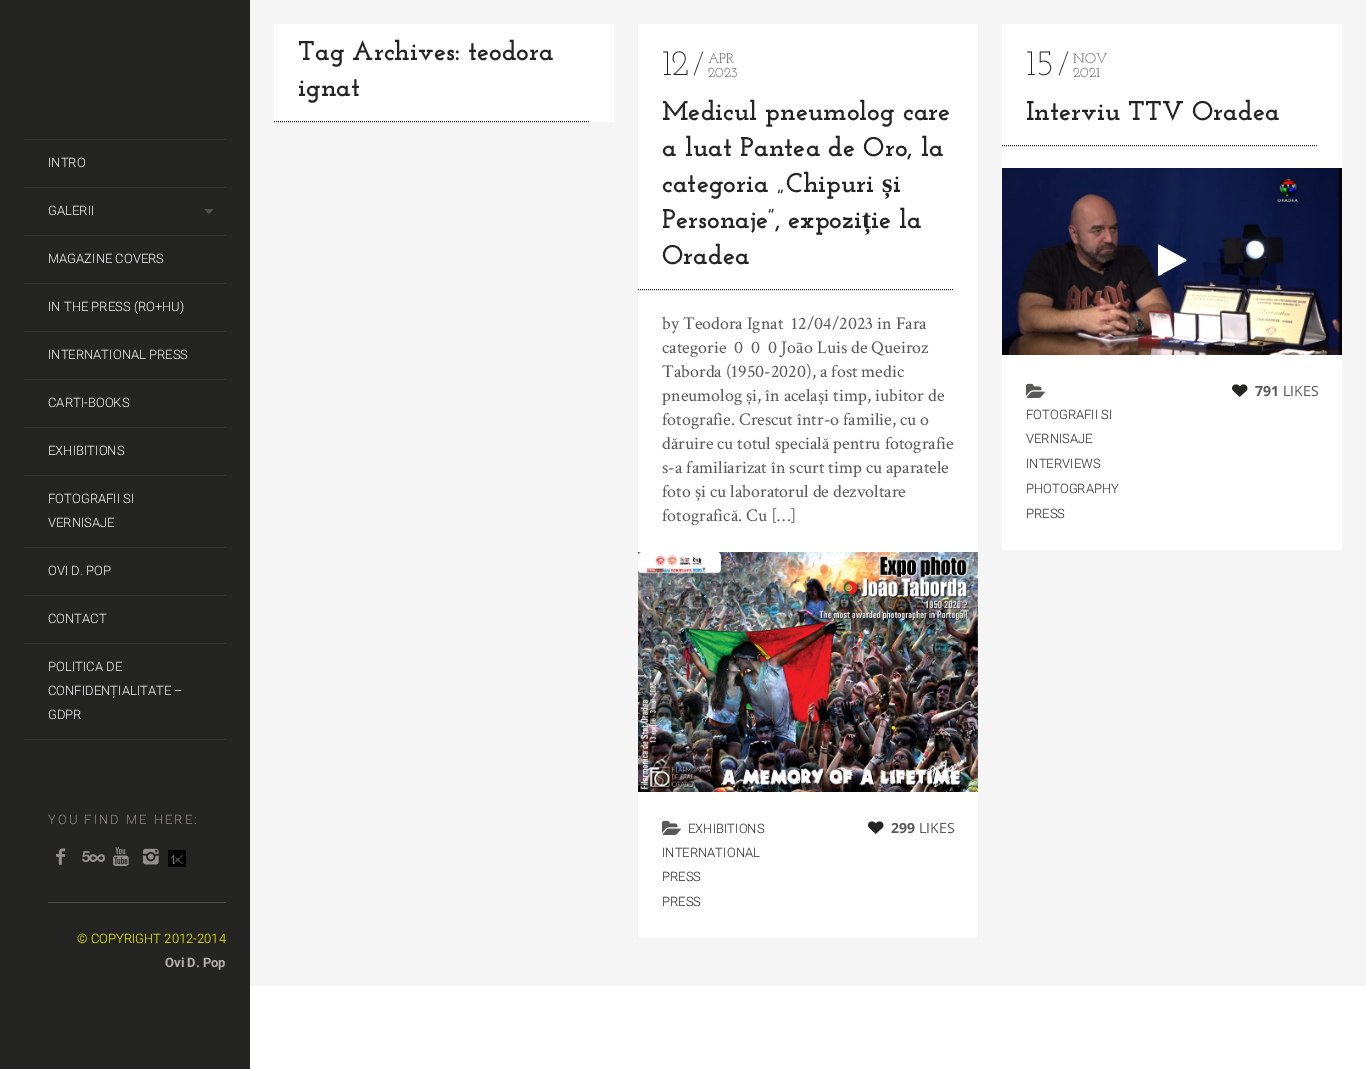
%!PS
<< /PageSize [1366 1069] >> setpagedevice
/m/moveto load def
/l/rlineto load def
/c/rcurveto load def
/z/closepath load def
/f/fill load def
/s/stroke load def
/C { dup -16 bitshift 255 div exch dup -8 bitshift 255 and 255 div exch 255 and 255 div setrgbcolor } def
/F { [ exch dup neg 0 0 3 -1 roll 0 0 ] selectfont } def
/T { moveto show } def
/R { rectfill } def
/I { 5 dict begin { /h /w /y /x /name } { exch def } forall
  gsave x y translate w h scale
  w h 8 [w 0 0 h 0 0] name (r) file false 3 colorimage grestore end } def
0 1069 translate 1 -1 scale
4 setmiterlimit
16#FFFFFF C
0 0 1366 1069 R
16#242423 C
0 0 250 1069 R
16#333638 C
24 139 202 1 R
24 187 202 1 R
/Roboto-Light 13 F
16#FFFFFF C
(INTRO) 48 167 T
16#333638 C
24 235 202 1 R
16#FFFFFF C
(GALERII) 48 215 T
16#4D4D4D C
204 209 m 10 0 l -5 5 l z f
16#333638 C
24 283 202 1 R
16#FFFFFF C
(MAGAZINE COVERS) 48 263 T
16#333638 C
24 331 202 1 R
16#FFFFFF C
(IN THE PRESS \(RO+HU\)) 48 311 T
16#333638 C
24 379 202 1 R
16#FFFFFF C
(INTERNATIONAL PRESS) 48 359 T
16#333638 C
24 427 202 1 R
16#FFFFFF C
(CARTI-BOOKS) 48 407 T
16#333638 C
24 475 202 1 R
16#FFFFFF C
(EXHIBITIONS) 48 455 T
16#333638 C
24 547 202 1 R
16#FFFFFF C
(FOTOGRAFII SI) 48 503 T
(VERNISAJE) 48 527 T
16#333638 C
24 595 202 1 R
16#FFFFFF C
(OVI D. POP) 48 575 T
16#333638 C
24 643 202 1 R
16#FFFFFF C
(CONTACT) 48 623 T
16#333638 C
24 739 202 1 R
16#FFFFFF C
(POLITICA DE) 48 671 T
(CONFIDENȚIALITATE –) 48 695 T
(GDPR) 48 719 T
16#4D4D4D C
48 902 178 1 R
16#91908E C
48 824 m 2 0 (YOU FIND ME HERE:) ashow
(1.rgb) 56 848 10 17 I
(2.rgb) 82 851 23 12 I
(3.rgb) 113 847 16 20 I
(4.rgb) 143 848 16 17 I
(5.rgb) 168 850 18 17 I
16#FFFF00 C
(© COPYRIGHT 2012-2014) 77 943 T
/Roboto-Bold 13 F
16#B2B1AF C
(Ovi D. Pop) 165 967 T
16#F5F5F5 C
250 0 1116 986 R
16#FFFFFF C
274 24 340 98 R
/JosefinSlab-Bold 27 F
16#242423 C
(Tag Archives: teodora) 298 60 T
(ignat) 298 96 T
[1 1] 0 setdash
274 121.5 m 316 0 l s
16#FFFFFF C
638 24 340 914 R
/JosefinSlab-Light 36 F
16#242423 C
(12) 662 75 T
/JosefinSlab-Light 32 F
(/) 693 75 T
/JosefinSlab-Regular 14 F
16#595957 C
(APR) 708 63 T
(2023) 708 77 T
/JosefinSlab-Bold 27 F
16#242423 C
(Medicul pneumolog care) 662 120 T
(a luat Pantea de Oro, la) 662 156 T
(categoria „Chipuri) 662 192 T
/LiberationSerif-Bold 27 F
(ș) 882 192 T
/JosefinSlab-Bold 27 F
(i) 893 192 T
(Personaje”, expozi) 662 228 T
/LiberationSerif-Bold 27 F
(ț) 862 228 T
/JosefinSlab-Bold 27 F
(ie la) 871 228 T
(Oradea) 662 264 T
638 289.5 m 316 0 l s
/CrimsonText-Regular 18 F
16#595957 C
(by Teodora Ignat  12/04/2023 in Fara) 662 329 T
(categorie  0  0  0 João Luis de Queiroz) 662 353 T
(Taborda \(1950-2020\), a fost medic) 662 377 T
(pneumolog și, în același timp, iubitor de) 662 401 T
(fotografie. Crescut într-o familie, cu o) 662 425 T
(dăruire cu totul specială pentru fotografie) 662 449 T
(s-a familiarizat în scurt timp cu aparatele) 662 473 T
(foto și cu laboratorul de dezvoltare) 662 497 T
(fotografică. Cu […]) 662 521 T
(6.rgb) 638 552 340 240 I
(7.rgb) 662 820 19 15 I
/Roboto-Light 13 F
16#242423 C
(EXHIBITIONS) 688 833 T
(INTERNATIONAL) 662 857 T
(PRESS) 662 881 T
(PRESS) 662 906 T
(8.rgb) 868 821 16 13 I
/OpenSans-Bold 14 F
16#595957 C
(299) 891 833 T
/OpenSans-Regular 14 F
(LIKES) 919 833 T
16#FFFFFF C
1002 24 340 526 R
/JosefinSlab-Light 36 F
16#242423 C
(15) 1026 75 T
/JosefinSlab-Light 32 F
(/) 1058 75 T
/JosefinSlab-Regular 14 F
16#595957 C
(NOV) 1073 63 T
(2021) 1073 77 T
/JosefinSlab-Bold 27 F
16#242423 C
(Interviu TTV Oradea) 1026 120 T
1002 145.5 m 316 0 l s
(9.rgb) 1002 168 340 187 I
16#FFFFFF C
1186 261 m -22.5 12 l -.5 .5 -4.5 3.5 -5.5 2.5 c 0 -30.5 l .5 -.5 l 27.5 15 l .5 .5 l z f
(8.rgb) 1232 384 16 13 I
/OpenSans-Bold 14 F
16#595957 C
(791) 1255 396 T
/OpenSans-Regular 14 F
(LIKES) 1283 396 T
(7.rgb) 1026 383 19 15 I
/Roboto-Light 13 F
16#242423 C
(FOTOGRAFII SI) 1026 419 T
(VERNISAJE) 1026 443 T
(INTERVIEWS) 1026 468 T
(PHOTOGRAPHY) 1026 493 T
(PRESS) 1026 518 T
showpage
